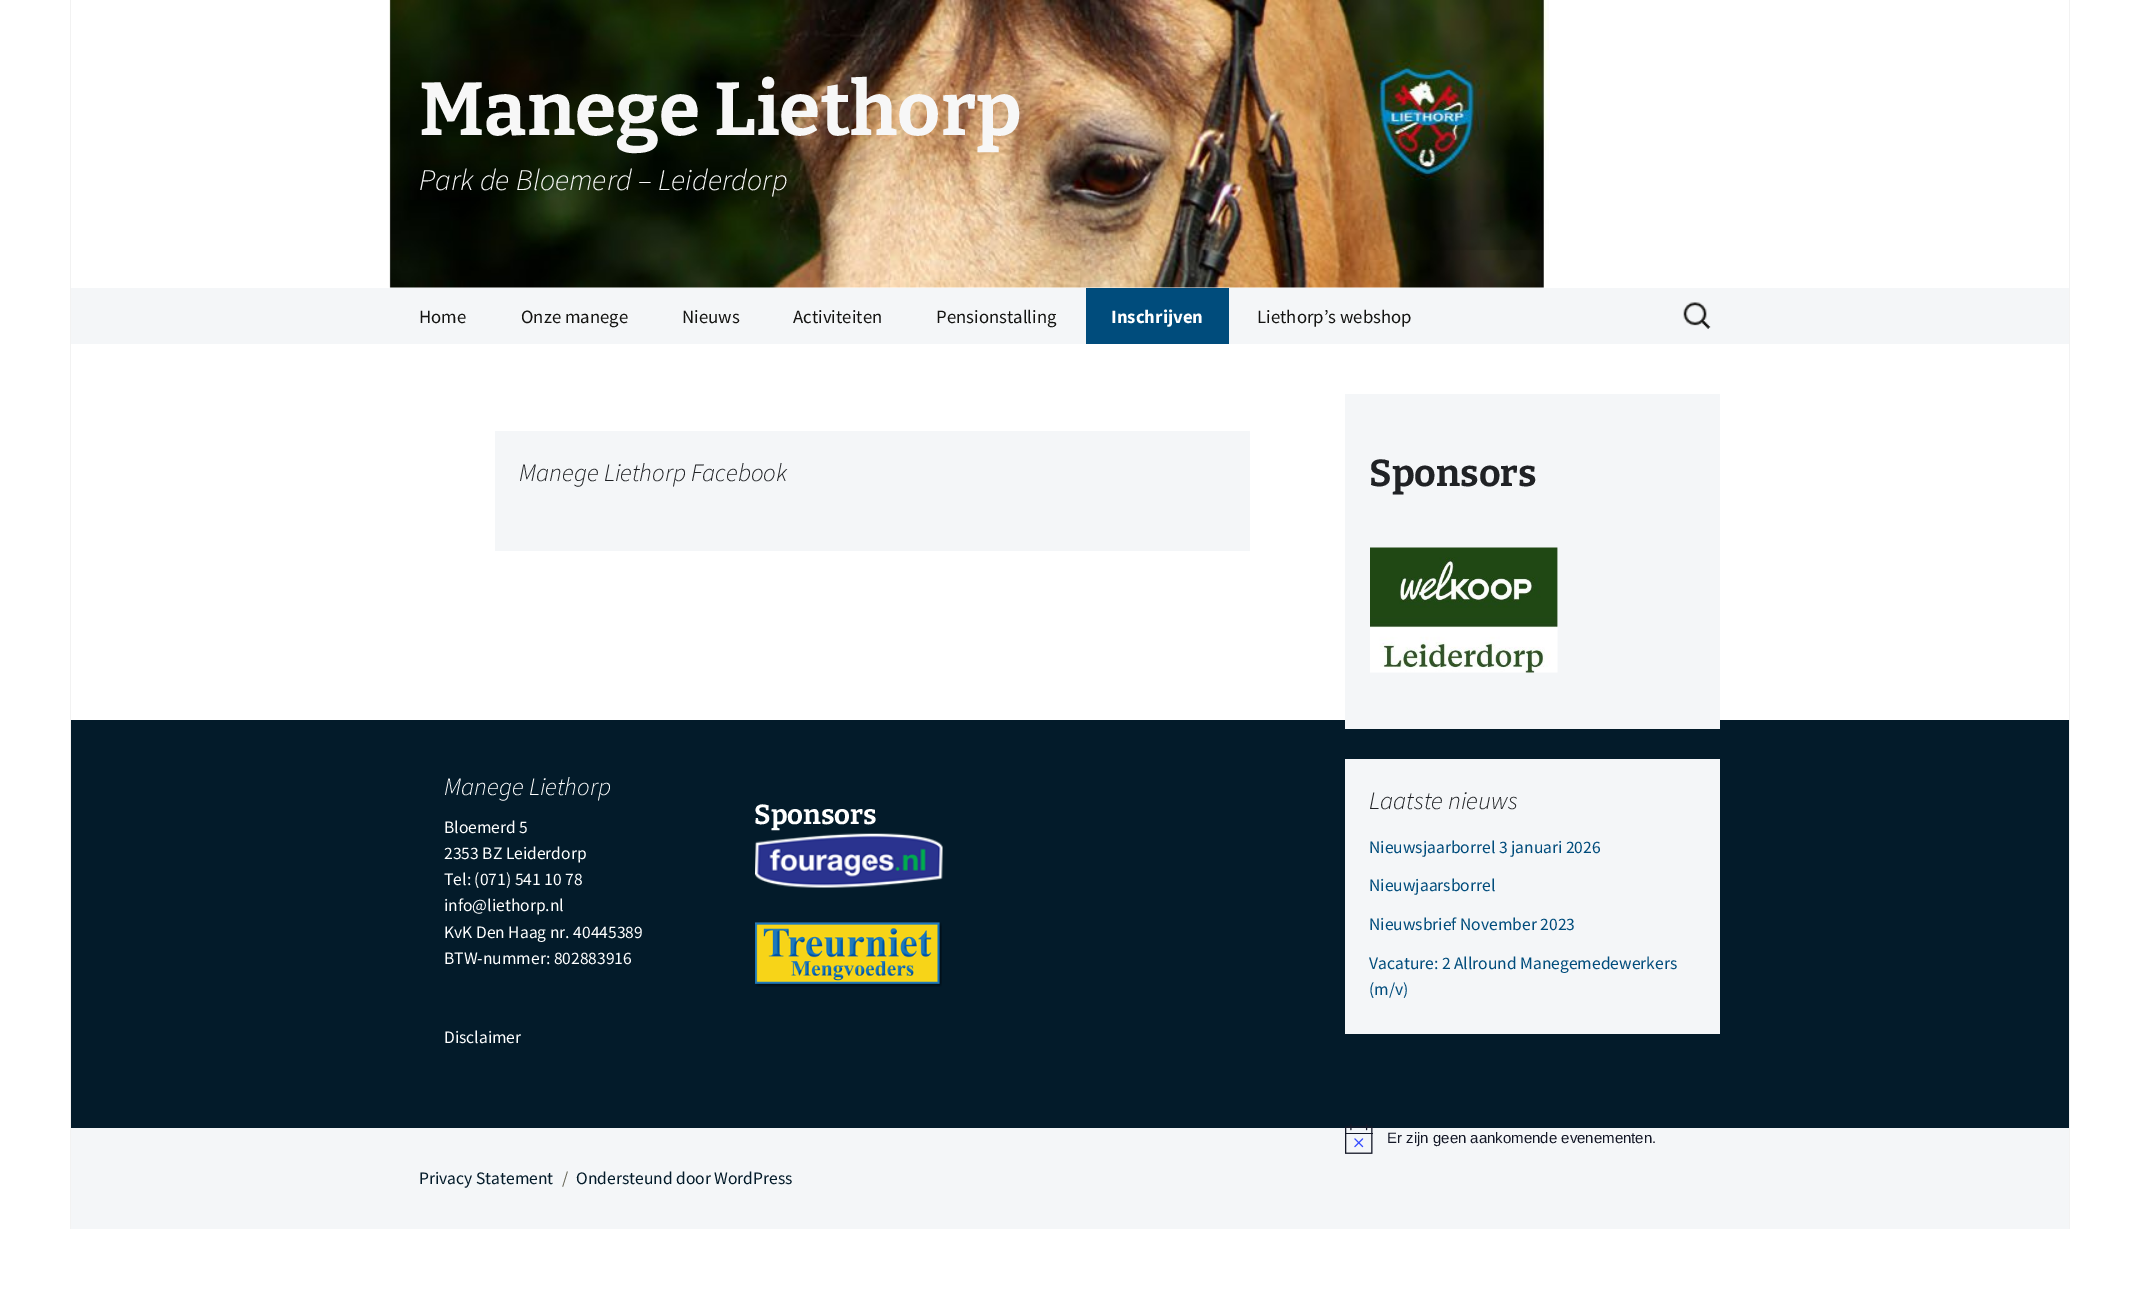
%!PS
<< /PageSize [2138 1308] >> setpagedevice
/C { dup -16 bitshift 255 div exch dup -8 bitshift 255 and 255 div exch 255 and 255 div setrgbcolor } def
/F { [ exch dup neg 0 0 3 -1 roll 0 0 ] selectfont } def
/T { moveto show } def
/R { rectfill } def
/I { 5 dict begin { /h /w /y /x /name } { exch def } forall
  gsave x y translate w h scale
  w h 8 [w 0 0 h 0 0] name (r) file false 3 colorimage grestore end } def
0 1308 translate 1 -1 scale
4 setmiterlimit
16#FFFFFF C
0 0 2138 1308 R
16#F2F2F2 C
2069 0 1 1229 R
70 0 1 1229 R
(1.rgb) 389 0 1161 288 I
/Bitter-Thin 75 F
16#F7F7F7 C
(Manege Liethorp) 419 135 T
/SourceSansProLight-LightItalic 30 F
(Park de Bloemerd – Leiderdorp) 419 190 T
16#F4F6F8 C
71 288 1998 56 R
/SourceSansPro-Regular 18.75 F
16#141412 C
(Home) 419 323 T
(Onze manege) 521 323 T
(Nieuws) 682 323 T
(Activiteiten) 793 323 T
(Pensionstalling) 936 323 T
16#004C7C C
1086 288 143 56 R
/SourceSansPro-Bold 18.75 F
16#FFFFFF C
(Inschrijven) 1111 323 T
/SourceSansPro-Regular 18.75 F
16#141412 C
(Liethorp’s webshop) 1257 323 T
(2.rgb) 1683 302 28 27 I
16#F4F6F8 C
495 431 755 120 R
/SourceSansProLight-LightItalic 25 F
16#202225 C
(Manege Liethorp Facebook) 519 481 T
16#031B2A C
71 720 1998 408 R
16#F4F6F8 C
1345 394 375 335 R
/Bitter-Thin 37.5 F
16#202225 C
(Sponsors) 1369 486 T
(3.rgb) 1370 547 188 126 I
16#F4F6F8 C
1345 759 375 275 R
/SourceSansProLight-LightItalic 25 F
16#202225 C
(Laatste nieuws) 1369 809 T
/SourceSansPro-Regular 17.5 F
16#004C7C C
(Nieuwsjaarborrel 3 januari 2026) 1369 853 T
(Nieuwjaarsborrel) 1369 891 T
(Nieuwsbrief November 2023) 1369 930 T
(Vacature: 2 Allround Manegemedewerkers) 1369 969 T
(\(m/v\)) 1369 995 T
16#F4F6F8 C
71 1128 1998 101 R
(4.rgb) 1345 1124 28 30 I
/LiberationSans-Regular 15 F
16#141827 C
(Er zijn geen aankomende evenementen.) 1387 1143 T
/SourceSansProLight-LightItalic 25 F
16#FFFFFF C
(Manege Liethorp) 444 795 T
/SourceSansPro-Regular 17.5 F
(Bloemerd 5) 444 833 T
(2353 BZ Leiderdorp) 444 859 T
(Tel: \(071\) 541 10 78) 444 885 T
(info@liethorp.nl) 444 911 T
(KvK Den Haag nr. 40445389) 444 938 T
(BTW-nummer: 802883916) 444 964 T
(Disclaimer) 444 1043 T
/Bitter-Thin 27.5 F
(Sponsors) 754 824 T
(5.rgb) 755 833 188 55 I
(6.rgb) 755 922 187 65 I
/SourceSansPro-Regular 17.5 F
16#031B2A C
(Privacy Statement) 419 1184 T
16#686758 C
(/) 562 1184 T
16#031B2A C
(Ondersteund door WordPress) 576 1184 T
showpage
